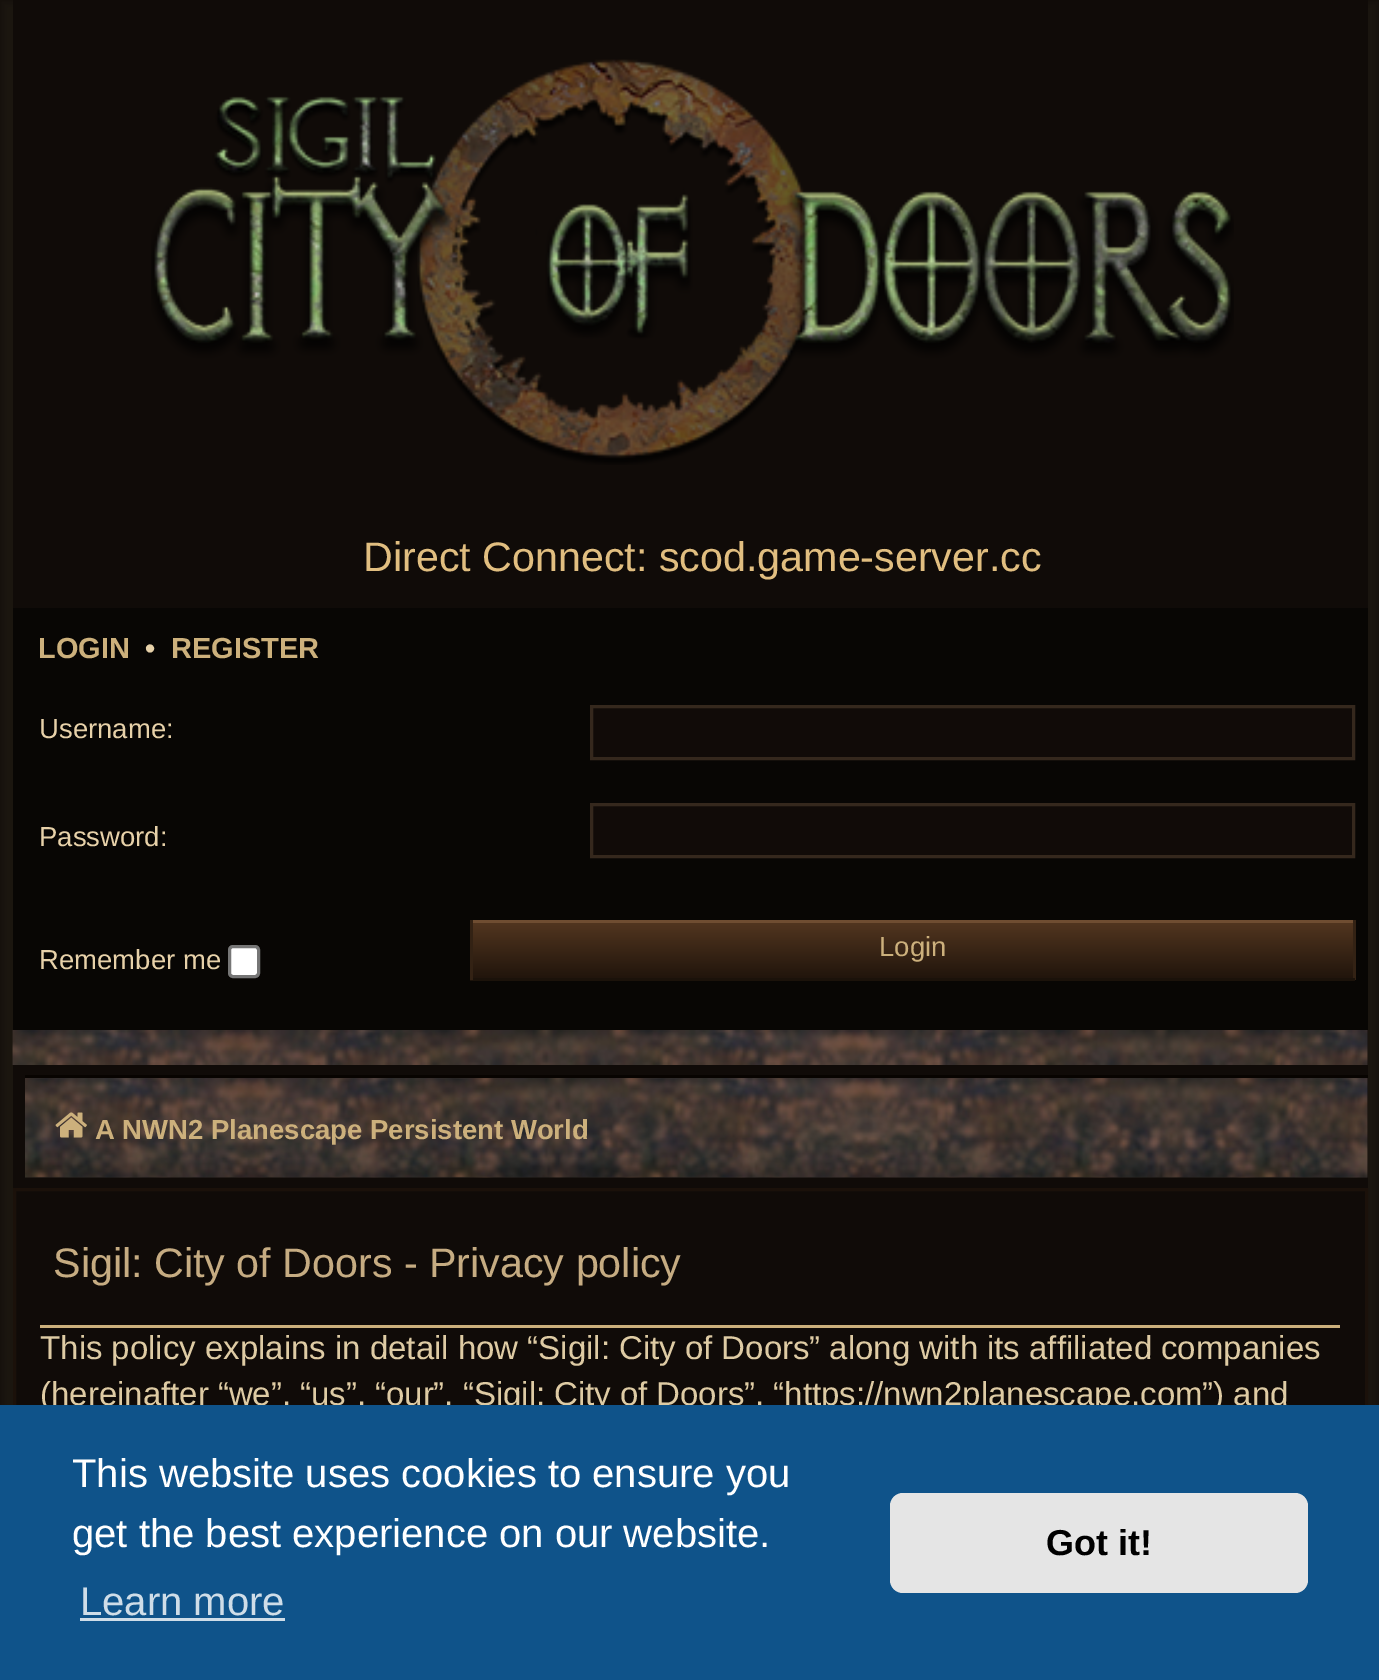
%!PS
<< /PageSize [1379 1680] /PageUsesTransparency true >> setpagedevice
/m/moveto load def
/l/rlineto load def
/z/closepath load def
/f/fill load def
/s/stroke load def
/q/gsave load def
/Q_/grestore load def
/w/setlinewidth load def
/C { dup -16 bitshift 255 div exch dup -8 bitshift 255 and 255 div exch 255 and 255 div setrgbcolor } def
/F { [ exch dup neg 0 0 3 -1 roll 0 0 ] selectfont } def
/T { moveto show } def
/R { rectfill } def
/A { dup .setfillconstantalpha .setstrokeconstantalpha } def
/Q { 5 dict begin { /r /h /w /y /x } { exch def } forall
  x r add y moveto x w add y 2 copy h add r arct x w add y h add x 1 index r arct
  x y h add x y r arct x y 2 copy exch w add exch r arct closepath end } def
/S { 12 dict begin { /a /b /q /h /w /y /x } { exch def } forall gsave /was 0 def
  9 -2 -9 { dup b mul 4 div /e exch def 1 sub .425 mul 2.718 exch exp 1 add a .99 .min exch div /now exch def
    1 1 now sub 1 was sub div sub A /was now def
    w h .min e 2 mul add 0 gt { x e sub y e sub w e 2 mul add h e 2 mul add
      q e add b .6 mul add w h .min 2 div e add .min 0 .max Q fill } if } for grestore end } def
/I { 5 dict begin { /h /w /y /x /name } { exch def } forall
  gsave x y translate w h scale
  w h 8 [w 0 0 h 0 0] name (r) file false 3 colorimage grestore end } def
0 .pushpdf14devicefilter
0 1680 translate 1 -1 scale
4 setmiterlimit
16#100B08 C
0 0 1379 1680 R
q
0 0 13 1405 rectclip
16#1C1710 C
0 0 1355 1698 0 6 1 S
Q_
q
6 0 m 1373 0 l 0 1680 l -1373 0 l z 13 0 m 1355 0 l 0 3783 l -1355 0 l z eoclip newpath
16#1C1710 C
25 0 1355 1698 0 6 .9 S
Q_
1367 0 1 608 R
(1.rgb) 151 59 1083 406 I
/LiberationSans-Regular 41.25 F
16#E1BE80 C
(Direct Connect: scod.game-server.cc) 363 571 T
16#080604 C
13 608 1355 422 R
/LiberationSans-Bold 29 F
16#CCB07C C
(LOGIN) 38 658 T
16#E7D1A9 C
(•) 145 658 T
16#CCB07C C
(REGISTER) 171 658 T
/LiberationSans-Regular 27.5 F
16#E7D1A9 C
(Username:) 39 738 T
16#110B08 C
591.5 706.5 m 762 0 l 0 52 l -762 0 l z q f Q_
16#35281D C
3 w
s
16#E7D1A9 C
(Password:) 39 846 T
16#110B08 C
591.5 804.5 m 762 0 l 0 52 l -762 0 l z q f Q_
16#35281D C
s
16#E7D1A9 C
(Remember me) 39 969 T
16#FFFFFF C
229.5 946.5 29 30 3.5 Q q f Q_
16#767676 C
s
q 473 923 m 880 0 l 0 55 l -880 0 l z clip newpath
<< /ShadingType 2 /ColorSpace /DeviceRGB /Coords [913 923 913 978] /Extend [true true] /Function << /FunctionType 2 /Domain [0 1] /C0 [.318 .208 .122] /C1 [.129 .082 .047] /N 1 >> >> shfill Q_
16#6F4D31 C
470 920 885 3 R
16#332214 C
1353 920 3 60 R
16#1B120A C
470 978 885 3 R
16#332214 C
470 920 3 60 R
16#CCB07C C
(Login) 879 956 T
(2.rgb) 12 1030 1356 35 I
16#100B08 C
1367 1065 1 113 R
(3.rgb) 25 1078 1343 100 I
16#080401 C
25 1075 1343 3 R
(4.rgb) 55 1112 32 26 I
/LiberationSans-Bold 27.5 F
16#CCB07C C
(A NWN2 Planescape Persistent World) 95 1139 T
16#1B110A C
14.5 1189.5 1352 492 rectstroke
16#CCB07C C
40 1325 1300 3 R
/LiberationSans-Regular 41.25 F
16#C6AC82 C
(Sigil: City of Doors - Privacy policy) 53 1277 T
/LiberationSans-Regular 33 F
16#DECBA4 C
40 1359 m -.1 0 32 (This policy explains in detail how “Sigil: City of Doors” along with its affiliated companies) widthshow
40 1405 m -.25 0 32 (\(hereinafter “we”, “us”, “our”, “Sigil: City of Doors”, “https://nwn2planescape.com”\) and) widthshow
16#0F538A C
0 1405 1379 275 R
/LiberationSans-Regular 40 F
16#FFFFFF C
(This website uses cookies to ensure you) 72 1487 T
(get the best experience on our website.) 72 1547 T
16#CFDDE8 C
(Learn more) 80 1615 T
80 1618 205 3 R
16#E5E5E5 C
890 1493 418 100 13 Q f
/LiberationSans-Bold 36 F
16#000000 C
(Got it!) 1046 1555 T
.poppdf14devicefilter showpage
